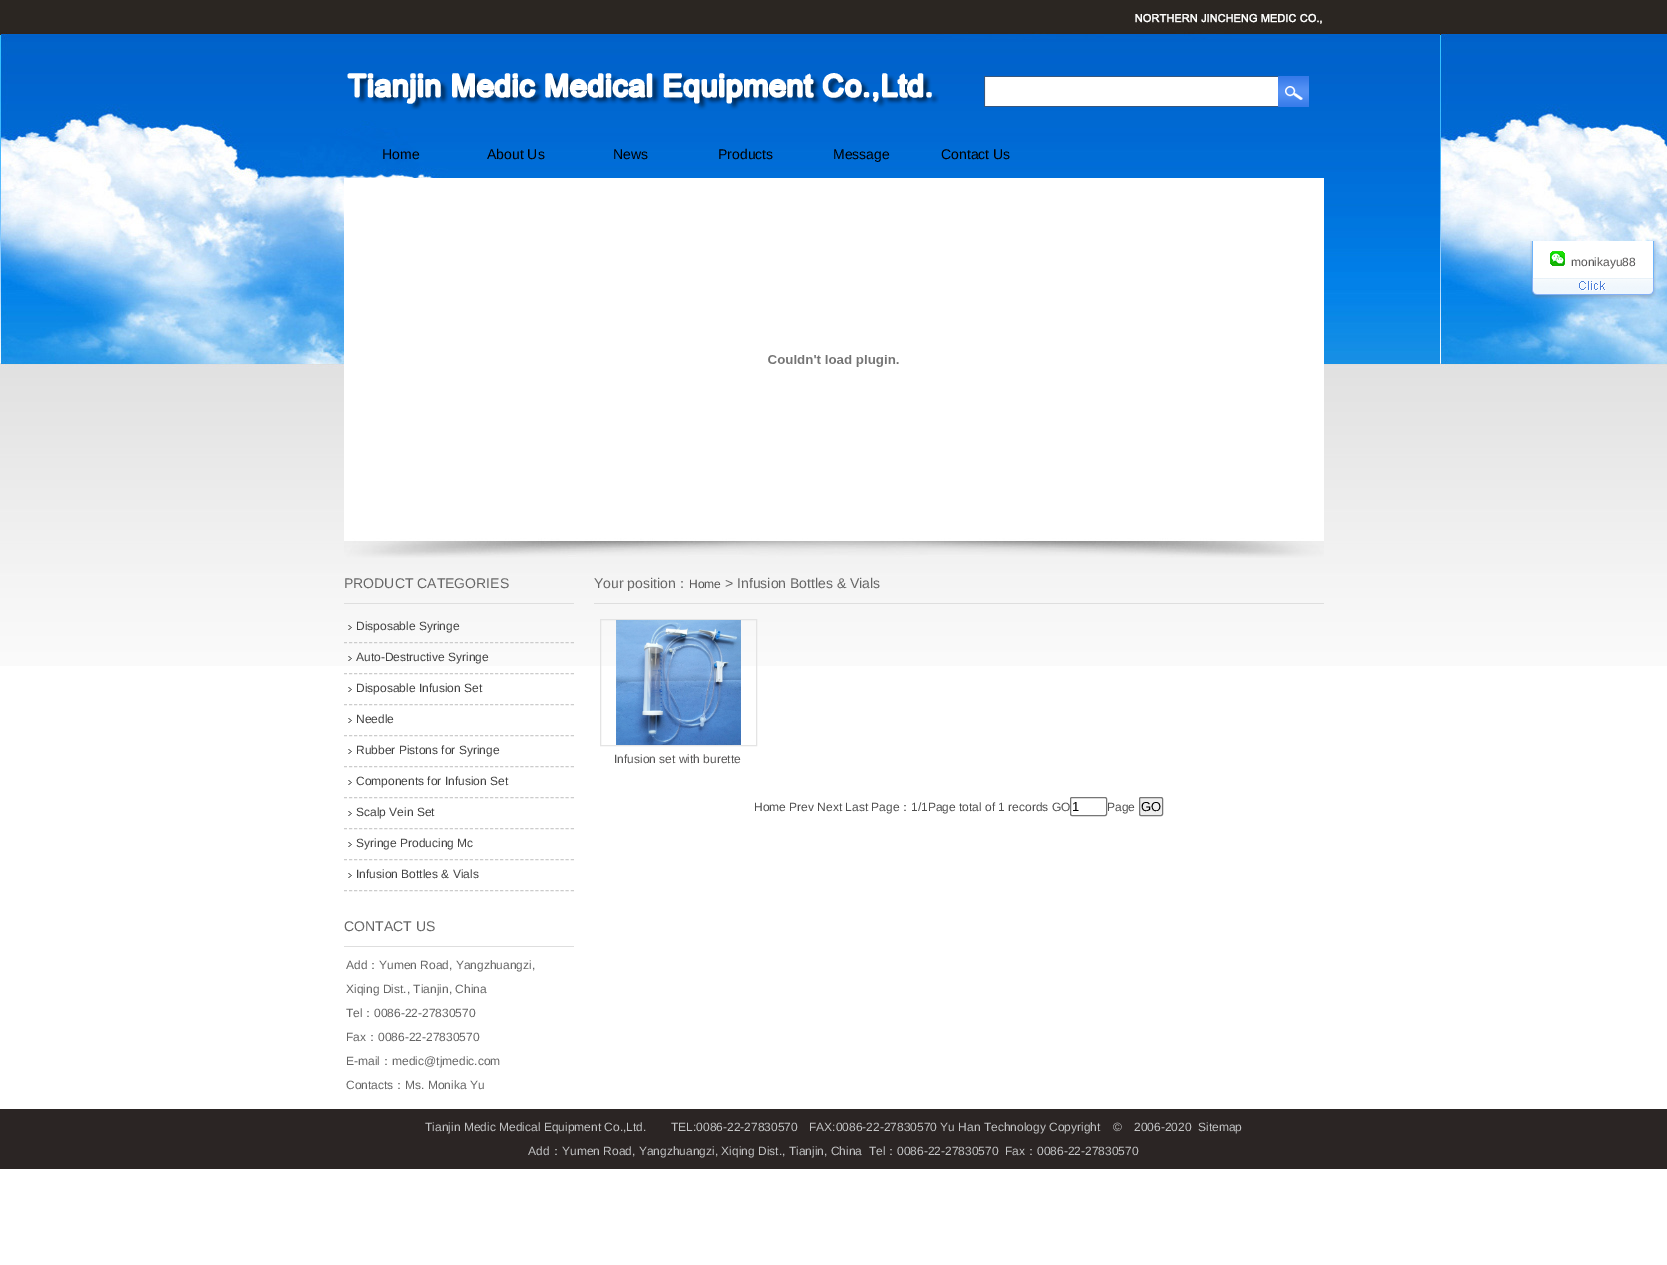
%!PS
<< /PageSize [1667 1265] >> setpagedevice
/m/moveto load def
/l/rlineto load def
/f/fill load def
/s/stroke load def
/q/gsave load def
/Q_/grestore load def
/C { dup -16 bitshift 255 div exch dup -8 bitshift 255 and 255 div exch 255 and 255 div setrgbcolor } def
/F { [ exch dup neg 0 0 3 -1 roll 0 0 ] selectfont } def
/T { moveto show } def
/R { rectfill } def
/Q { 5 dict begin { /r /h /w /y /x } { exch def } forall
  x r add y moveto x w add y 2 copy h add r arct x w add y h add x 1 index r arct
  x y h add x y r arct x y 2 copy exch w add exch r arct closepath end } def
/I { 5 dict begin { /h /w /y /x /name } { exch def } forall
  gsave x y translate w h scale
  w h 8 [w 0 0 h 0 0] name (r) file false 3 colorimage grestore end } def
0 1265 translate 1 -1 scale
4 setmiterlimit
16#FFFFFF C
0 0 1667 1265 R
(1.rgb) 0 0 1667 666 I
(2.rgb) 1135 13 187 16 I
(3.rgb) 347 73 592 37 I
(4.rgb) 984 76 294 31 I
(5.rgb) 1278 76 31 31 I
/LiberationSans-Regular 14 F
16#000000 C
(Home) 382 159 T
(About Us) 487 159 T
(News) 613 159 T
(Products) 718 159 T
(Message) 833 159 T
(Contact Us) 941 159 T
(6.rgb) 344 178 980 380 I
(7.rgb) 768 355 131 12 I
16#DEDEDE C
344 603 230 1 R
16#666666 C
(PRODUCT CATEGORIES) 344 588 T
(8.rgb) 348 625 4 5 I
16#CCCCCC C
[3 2.04] 0 setdash
344 642.5 m 230 0 l s
/LiberationSans-Regular 12 F
16#434343 C
(Disposable Syringe) 356 630 T
(9.rgb) 348 656 4 5 I
16#CCCCCC C
344 673.5 m 230 0 l s
16#434343 C
(Auto-Destructive Syringe) 356 661 T
(10.rgb) 348 687 4 5 I
16#CCCCCC C
344 704.5 m 230 0 l s
16#434343 C
(Disposable Infusion Set) 356 692 T
(10.rgb) 348 718 4 5 I
16#CCCCCC C
344 735.5 m 230 0 l s
16#434343 C
(Needle) 356 723 T
(10.rgb) 348 749 4 5 I
16#CCCCCC C
344 766.5 m 230 0 l s
16#434343 C
(Rubber Pistons for Syringe) 356 754 T
(10.rgb) 348 780 4 5 I
16#CCCCCC C
344 797.5 m 230 0 l s
16#434343 C
(Components for Infusion Set) 356 785 T
(10.rgb) 348 811 4 5 I
16#CCCCCC C
344 828.5 m 230 0 l s
16#434343 C
(Scalp Vein Set) 356 816 T
(10.rgb) 348 842 4 5 I
16#CCCCCC C
344 859.5 m 230 0 l s
16#434343 C
(Syringe Producing Mc) 356 847 T
(10.rgb) 348 873 4 5 I
16#CCCCCC C
344 890.5 m 230 0 l s
16#434343 C
(Infusion Bottles & Vials) 356 878 T
16#DEDEDE C
344 946 230 1 R
/LiberationSans-Regular 14 F
16#666666 C
(CONTACT US) 344 931 T
/LiberationSans-Regular 12 F
(Add) 346 969 T
/WenQuanYiZenHei-Medium 12 F
(：) 367 969 T
/LiberationSans-Regular 12 F
(Yumen Road, Yangzhuangzi,) 379 969 T
(Xiqing Dist., Tianjin, China) 346 993 T
(Tel) 346 1017 T
/WenQuanYiZenHei-Medium 12 F
(：) 362 1017 T
/LiberationSans-Regular 12 F
(0086-22-27830570) 374 1017 T
(Fax) 346 1041 T
/WenQuanYiZenHei-Medium 12 F
(：) 366 1041 T
/LiberationSans-Regular 12 F
(0086-22-27830570) 378 1041 T
(E-mail) 346 1065 T
/WenQuanYiZenHei-Medium 12 F
(：) 380 1065 T
/LiberationSans-Regular 12 F
(medic@tjmedic.com) 392 1065 T
(Contacts) 346 1089 T
/WenQuanYiZenHei-Medium 12 F
(：) 393 1089 T
/LiberationSans-Regular 12 F
(Ms. Monika Yu) 405 1089 T
16#DEDEDE C
594 603 730 1 R
/LiberationSans-Regular 14 F
16#666666 C
(Your position) 594 588 T
/WenQuanYiZenHei-Medium 14 F
(：) 675 588 T
/LiberationSans-Regular 12 F
16#575656 C
(Home) 689 588 T
/LiberationSans-Regular 14 F
16#666666 C
(> Infusion Bottles & Vials) 725 588 T
16#E4E4E4 C
[] 0 setdash
600.5 619.5 156 126 rectstroke
(11.rgb) 616 620 125 125 I
/LiberationSans-Regular 12 F
16#575656 C
(Infusion set with burette) 614 763 T
16#505050 C
(Home Prev Next Last Page) 754 811 T
/WenQuanYiZenHei-Medium 12 F
(：) 899 811 T
/LiberationSans-Regular 12 F
(1/1Page total of 1 records GO) 911 811 T
16#767676 C
1070.5 797.5 36 18 1.5 Q s
/LiberationSans-Regular 13 F
16#000000 C
(1) 1072 811 T
/LiberationSans-Regular 12 F
16#505050 C
(Page) 1107 811 T
16#EFEFEF C
1139.5 797.5 23 18 1.5 Q q f Q_
16#767676 C
s
/LiberationSans-Regular 13 F
16#000000 C
(GO) 1141 811 T
(12.rgb) 1530 241 126 37 I
(13.rgb) 1550 251 15 15 I
/LiberationSans-Regular 12 F
16#575656 C
(monikayu88) 1571 266 T
(14.rgb) 1530 278 126 21 I
16#2B2524 C
0 1109 1667 60 R
16#C2C3C4 C
(Tianjin Medic Medical Equipment Co.,Ltd.) 425 1131 T
(TEL:0086-22-27830570) 671 1131 T
(FAX:0086-22-27830570 Yu Han Technology Copyright) 809 1131 T
(©) 1113 1131 T
(2006-2020) 1134 1131 T
(Sitemap) 1198 1131 T
(Add) 528 1155 T
/WenQuanYiZenHei-Medium 12 F
(：) 550 1155 T
/LiberationSans-Regular 12 F
(Yumen Road, Yangzhuangzi, Xiqing Dist., Tianjin, China  Tel) 562 1155 T
/WenQuanYiZenHei-Medium 12 F
(：) 885 1155 T
/LiberationSans-Regular 12 F
(0086-22-27830570  Fax) 897 1155 T
/WenQuanYiZenHei-Medium 12 F
(：) 1025 1155 T
/LiberationSans-Regular 12 F
(0086-22-27830570) 1037 1155 T
showpage
